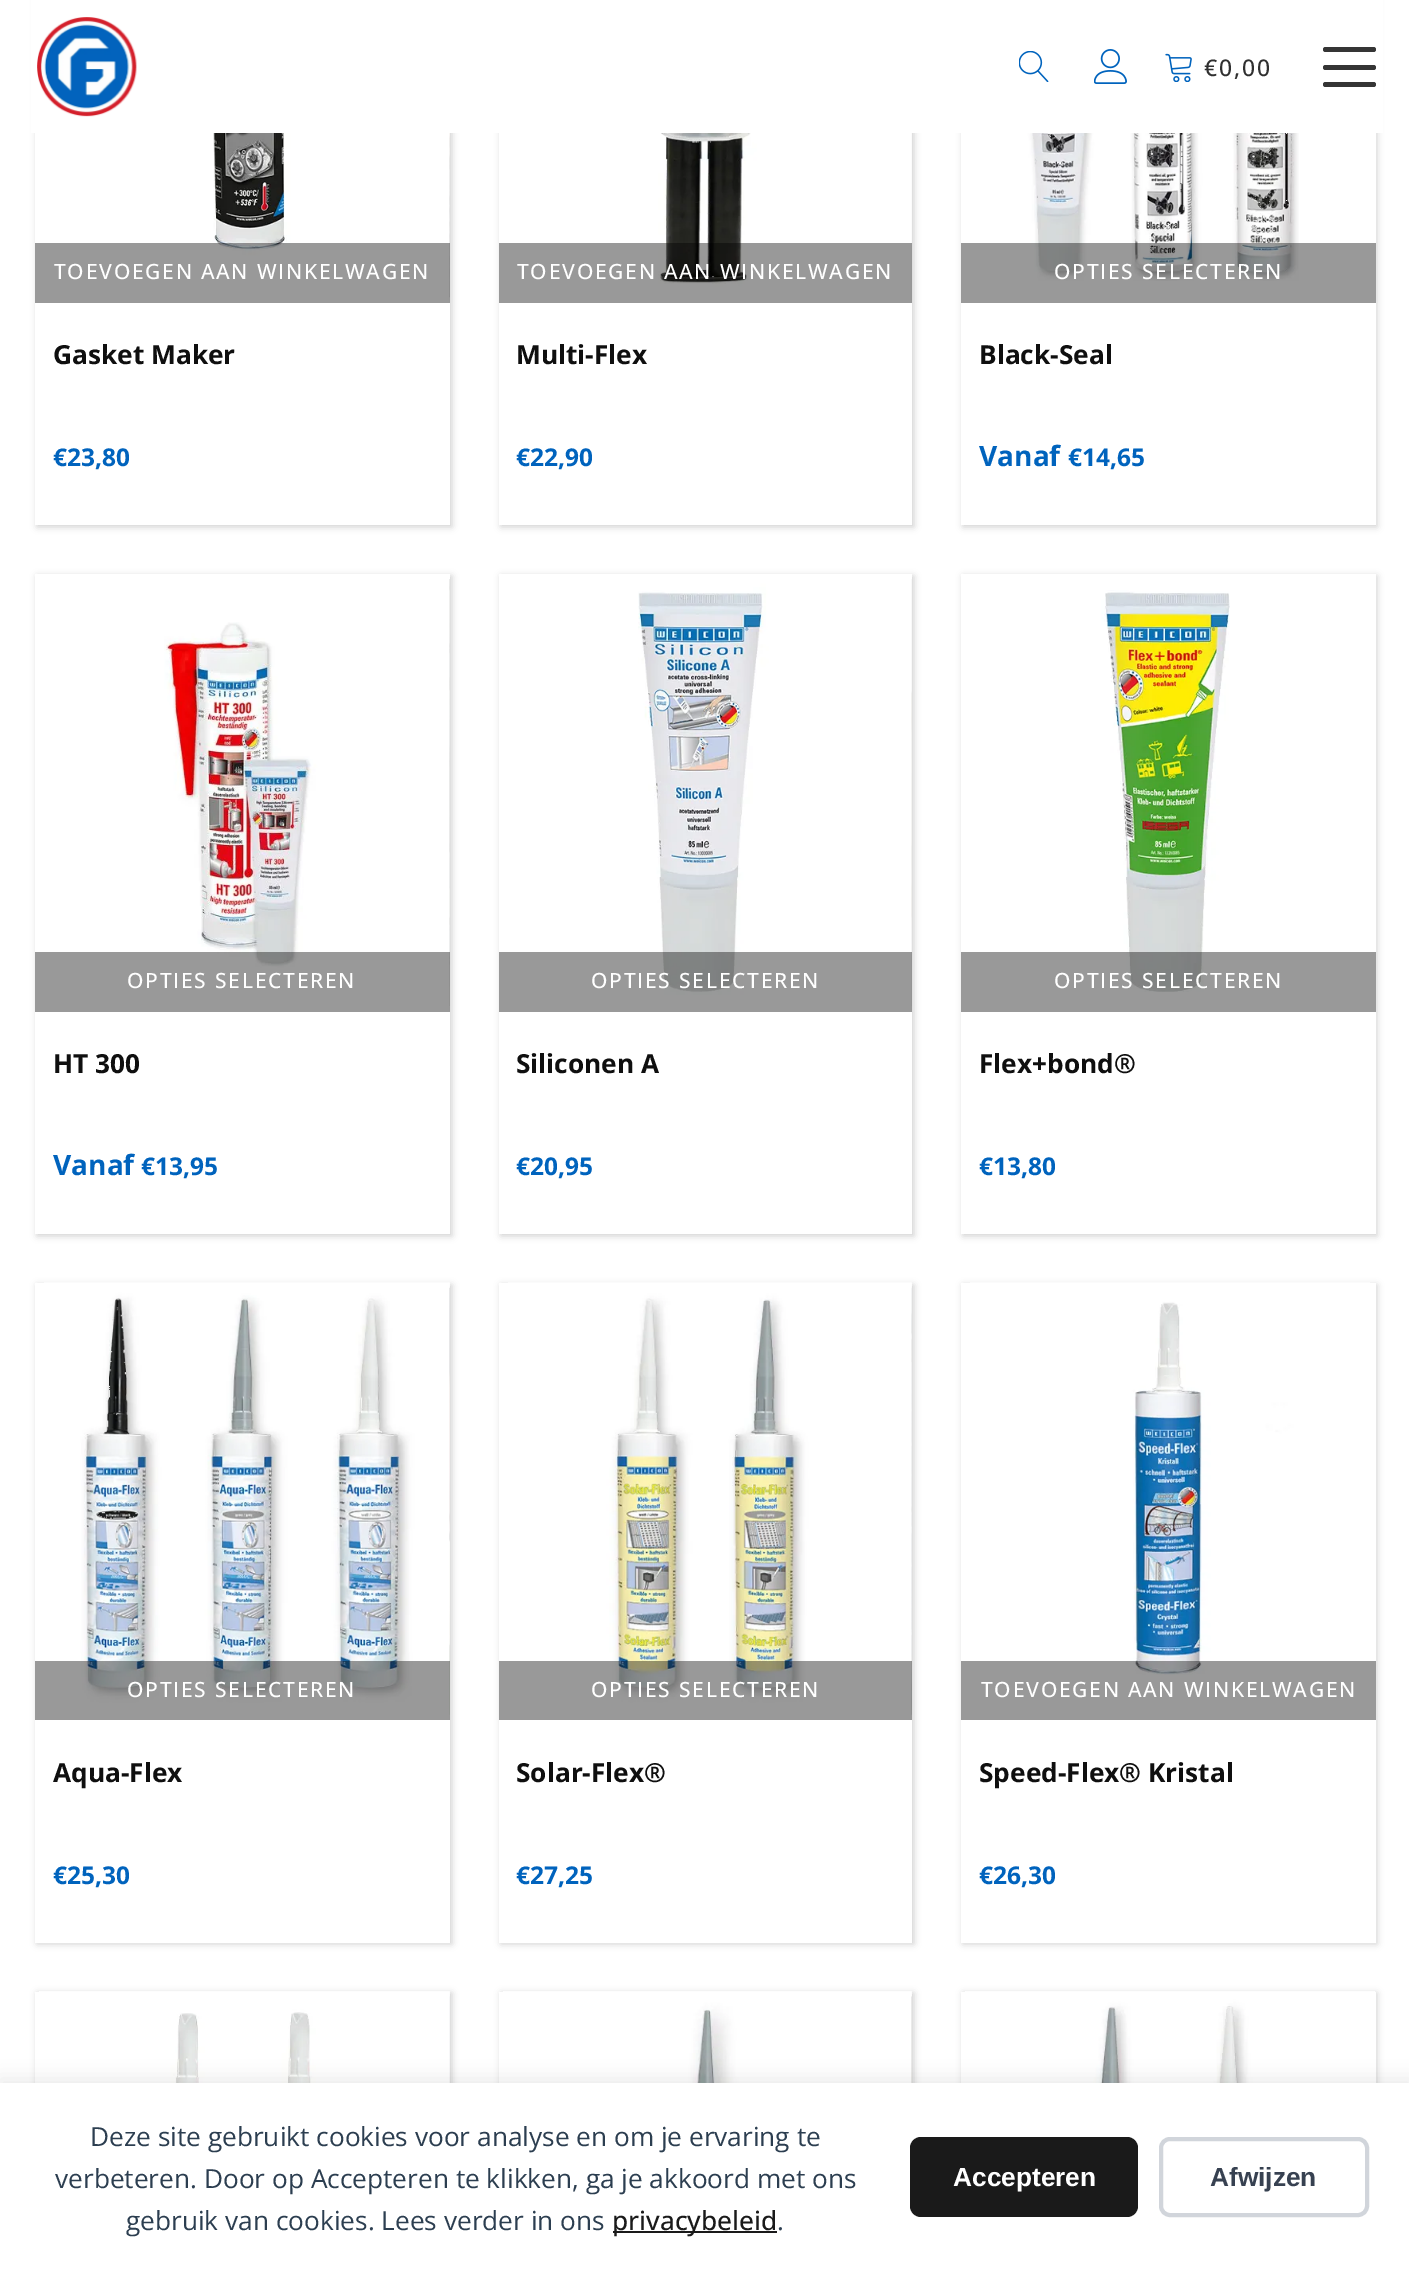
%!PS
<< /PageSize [1409 2270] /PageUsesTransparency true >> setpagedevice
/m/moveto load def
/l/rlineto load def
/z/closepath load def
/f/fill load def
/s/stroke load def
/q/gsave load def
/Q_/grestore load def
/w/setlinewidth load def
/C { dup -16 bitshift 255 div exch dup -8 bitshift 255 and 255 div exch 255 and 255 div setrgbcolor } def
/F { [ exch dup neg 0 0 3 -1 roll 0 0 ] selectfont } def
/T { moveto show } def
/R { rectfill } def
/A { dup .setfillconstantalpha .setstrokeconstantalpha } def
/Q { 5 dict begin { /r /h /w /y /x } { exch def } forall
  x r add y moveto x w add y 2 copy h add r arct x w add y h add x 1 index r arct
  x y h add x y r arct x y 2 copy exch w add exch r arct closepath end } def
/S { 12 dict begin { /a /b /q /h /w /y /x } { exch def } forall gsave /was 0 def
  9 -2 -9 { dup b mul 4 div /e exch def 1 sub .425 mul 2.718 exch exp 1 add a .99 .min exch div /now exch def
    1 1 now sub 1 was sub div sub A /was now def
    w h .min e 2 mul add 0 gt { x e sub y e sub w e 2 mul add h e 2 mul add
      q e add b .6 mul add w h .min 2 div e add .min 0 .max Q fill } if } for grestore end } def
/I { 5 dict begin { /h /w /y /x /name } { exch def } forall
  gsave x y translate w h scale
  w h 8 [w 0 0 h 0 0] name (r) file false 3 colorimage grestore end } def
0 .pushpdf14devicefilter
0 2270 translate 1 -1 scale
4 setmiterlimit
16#FFFFFF C
0 0 1409 2270 R
q
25 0 m 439 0 l 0 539 l -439 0 l z 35 -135 m 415 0 l 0 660 l -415 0 l z eoclip newpath
16#D1D1D1 C
37 -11 415 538 0 3.5 1 S
Q_
q
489 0 m 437 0 l 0 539 l -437 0 l z 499 -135 m 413 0 l 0 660 l -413 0 l z eoclip newpath
16#D1D1D1 C
501 -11 413 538 0 3.5 1 S
Q_
q
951 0 m 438 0 l 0 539 l -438 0 l z 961 -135 m 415 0 l 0 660 l -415 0 l z eoclip newpath
16#D1D1D1 C
963 -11 414 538 0 3.5 1 S
Q_
31 0 1352 133 R
(1.rgb) 37 17 100 100 I
(2.rgb) 1019 51 30 31 I
(3.rgb) 1094 49 33 35 I
(4.rgb) 1165 53 27 29 I
/OpenSans-Medium 23 F
16#303030 C
1204 76 m 1.75 0 (€0,00) ashow
16#353535 C
1323 47 53 5 2.5 Q f
1323 65 53 5 2.5 Q f
1323 82 53 5 2.5 Q f
(6.rgb) 449 133 1 165 I
(5.rgb) 187 133 263 169 I
0.4 A
16#000000 C
35 243 415 60 R
/OpenSans-Medium 21 F
1 A
16#FFFFFF C
54 279 m 1.75 0 (TOEVOEGEN AAN WINKELWAGEN) ashow
/OpenSans-Bold 26.25 F
16#0F0F0F C
(Gasket Maker) 53 364 T
/OpenSans-Bold 24.5 F
16#0063BD C
(€23,80) 53 466 T
(7.rgb) 658 133 254 169 I
0.4 A
16#000000 C
499 243 413 60 R
/OpenSans-Medium 21 F
1 A
16#FFFFFF C
517 279 m 1.75 0 (TOEVOEGEN AAN WINKELWAGEN) ashow
/OpenSans-Bold 26.25 F
16#0F0F0F C
(Multi-Flex) 516 364 T
/OpenSans-Bold 24.5 F
16#0063BD C
(€22,90) 516 466 T
(8.rgb) 1023 133 276 148 I
0.4 A
16#000000 C
961 243 415 60 R
/OpenSans-Medium 21 F
1 A
16#FFFFFF C
1054 279 m 1.75 0 (OPTIES SELECTEREN) ashow
/OpenSans-Bold 26.25 F
16#0F0F0F C
(Black-Seal) 979 364 T
/OpenSans-Bold 28 F
16#0063BD C
(Vanaf) 979 466 T
/OpenSans-Bold 24.5 F
(€14,65) 1068 466 T
q
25 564 m 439 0 l 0 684 l -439 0 l z 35 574 m 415 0 l 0 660 l -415 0 l z eoclip newpath
16#D1D1D1 C
37 576 415 660 0 3.5 1 S
Q_
(10.rgb) 449 579 1 427 I
(9.rgb) 164 579 286 432 I
0.4 A
16#000000 C
35 952 415 60 R
/OpenSans-Medium 21 F
1 A
16#FFFFFF C
127 988 m 1.75 0 (OPTIES SELECTEREN) ashow
/OpenSans-Bold 26.25 F
16#0F0F0F C
(HT 300) 53 1073 T
/OpenSans-Bold 28 F
16#0063BD C
(Vanaf) 53 1175 T
/OpenSans-Bold 24.5 F
(€13,95) 141 1175 T
q
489 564 m 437 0 l 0 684 l -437 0 l z 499 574 m 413 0 l 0 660 l -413 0 l z eoclip newpath
16#D1D1D1 C
501 576 413 660 0 3.5 1 S
Q_
(12.rgb) 911 579 1 427 I
(11.rgb) 638 579 274 432 I
0.4 A
16#000000 C
499 952 413 60 R
/OpenSans-Medium 21 F
1 A
16#FFFFFF C
591 988 m 1.75 0 (OPTIES SELECTEREN) ashow
/OpenSans-Bold 26.25 F
16#0F0F0F C
(Siliconen A) 516 1073 T
/OpenSans-Bold 24.5 F
16#0063BD C
(€20,95) 516 1175 T
q
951 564 m 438 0 l 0 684 l -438 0 l z 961 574 m 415 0 l 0 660 l -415 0 l z eoclip newpath
16#D1D1D1 C
963 576 414 660 0 3.5 1 S
Q_
(13.rgb) 1101 590 129 402 I
0.4 A
16#000000 C
961 952 415 60 R
/OpenSans-Medium 21 F
1 A
16#FFFFFF C
1054 988 m 1.75 0 (OPTIES SELECTEREN) ashow
/OpenSans-Bold 26.25 F
16#0F0F0F C
(Flex+bond®) 979 1073 T
/OpenSans-Bold 24.5 F
16#0063BD C
(€13,80) 979 1175 T
q
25 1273 m 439 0 l 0 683 l -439 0 l z 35 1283 m 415 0 l 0 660 l -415 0 l z eoclip newpath
16#D1D1D1 C
37 1285 415 659 0 3.5 1 S
Q_
(15.rgb) 449 1287 1 428 I
(14.rgb) 44 1282 406 438 I
0.4 A
16#000000 C
35 1661 415 59 R
/OpenSans-Medium 21 F
1 A
16#FFFFFF C
127 1697 m 1.75 0 (OPTIES SELECTEREN) ashow
/OpenSans-Bold 26.25 F
16#0F0F0F C
(Aqua-Flex) 53 1782 T
/OpenSans-Bold 24.5 F
16#0063BD C
(€25,30) 53 1884 T
q
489 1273 m 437 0 l 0 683 l -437 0 l z 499 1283 m 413 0 l 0 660 l -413 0 l z eoclip newpath
16#D1D1D1 C
501 1285 413 659 0 3.5 1 S
Q_
(17.rgb) 911 1287 1 428 I
(16.rgb) 508 1282 404 438 I
0.4 A
16#000000 C
499 1661 413 59 R
/OpenSans-Medium 21 F
1 A
16#FFFFFF C
591 1697 m 1.75 0 (OPTIES SELECTEREN) ashow
/OpenSans-Bold 26.25 F
16#0F0F0F C
(Solar-Flex®) 516 1782 T
/OpenSans-Bold 24.5 F
16#0063BD C
(€27,25) 516 1884 T
q
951 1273 m 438 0 l 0 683 l -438 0 l z 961 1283 m 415 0 l 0 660 l -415 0 l z eoclip newpath
16#D1D1D1 C
963 1285 414 659 0 3.5 1 S
Q_
(18.rgb) 970 1282 400 393 I
0.4 A
16#000000 C
961 1661 415 59 R
/OpenSans-Medium 21 F
1 A
16#FFFFFF C
981 1697 m 1.75 0 (TOEVOEGEN AAN WINKELWAGEN) ashow
/OpenSans-Bold 26.25 F
16#0F0F0F C
(Speed-Flex® Kristal) 979 1782 T
/OpenSans-Bold 24.5 F
16#0063BD C
(€26,30) 979 1884 T
q
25 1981 m 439 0 l 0 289 l -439 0 l z 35 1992 m 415 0 l 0 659 l -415 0 l z eoclip newpath
16#D1D1D1 C
37 1993 415 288 0 3.5 1 S
Q_
(20.rgb) 449 1996 1 87 I
(19.rgb) 39 1991 411 92 I
q
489 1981 m 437 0 l 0 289 l -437 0 l z 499 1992 m 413 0 l 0 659 l -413 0 l z eoclip newpath
16#D1D1D1 C
501 1993 413 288 0 3.5 1 S
Q_
(22.rgb) 911 1996 1 87 I
(21.rgb) 503 1991 409 92 I
q
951 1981 m 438 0 l 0 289 l -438 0 l z 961 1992 m 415 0 l 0 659 l -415 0 l z eoclip newpath
16#D1D1D1 C
963 1993 414 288 0 3.5 1 S
Q_
(23.rgb) 965 1991 410 92 I
16#000000 C
0 2079 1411 189 0 9 .08 S
16#FFFFFF C
0 2083 1409 187 R
/OpenSans-Regular 26.25 F
16#2C3E50 C
(Deze site gebruikt cookies voor analyse en om je ervaring te) 90 2146 T
(verbeteren. Door op Accepteren te klikken, ga je akkoord met ons) 55 2188 T
(gebruik van cookies. Lees verder in ons) 126 2230 T
16#1A1A1A C
613 2231 164 2 R
/OpenSans-Medium 26.25 F
(privacybeleid) 612 2230 T
/OpenSans-Regular 26.25 F
16#2C3E50 C
(.) 777 2230 T
16#1A1A1A C
910 2137 228 80 11 Q f
/LiberationSans-Bold 26.25 F
16#FFFFFF C
(Accepteren) 953 2186 T
16#D1D5DB C
4 w
1161 2139 206 76 9 Q s
16#374151 C
(Afwijzen) 1210 2186 T
.poppdf14devicefilter showpage
